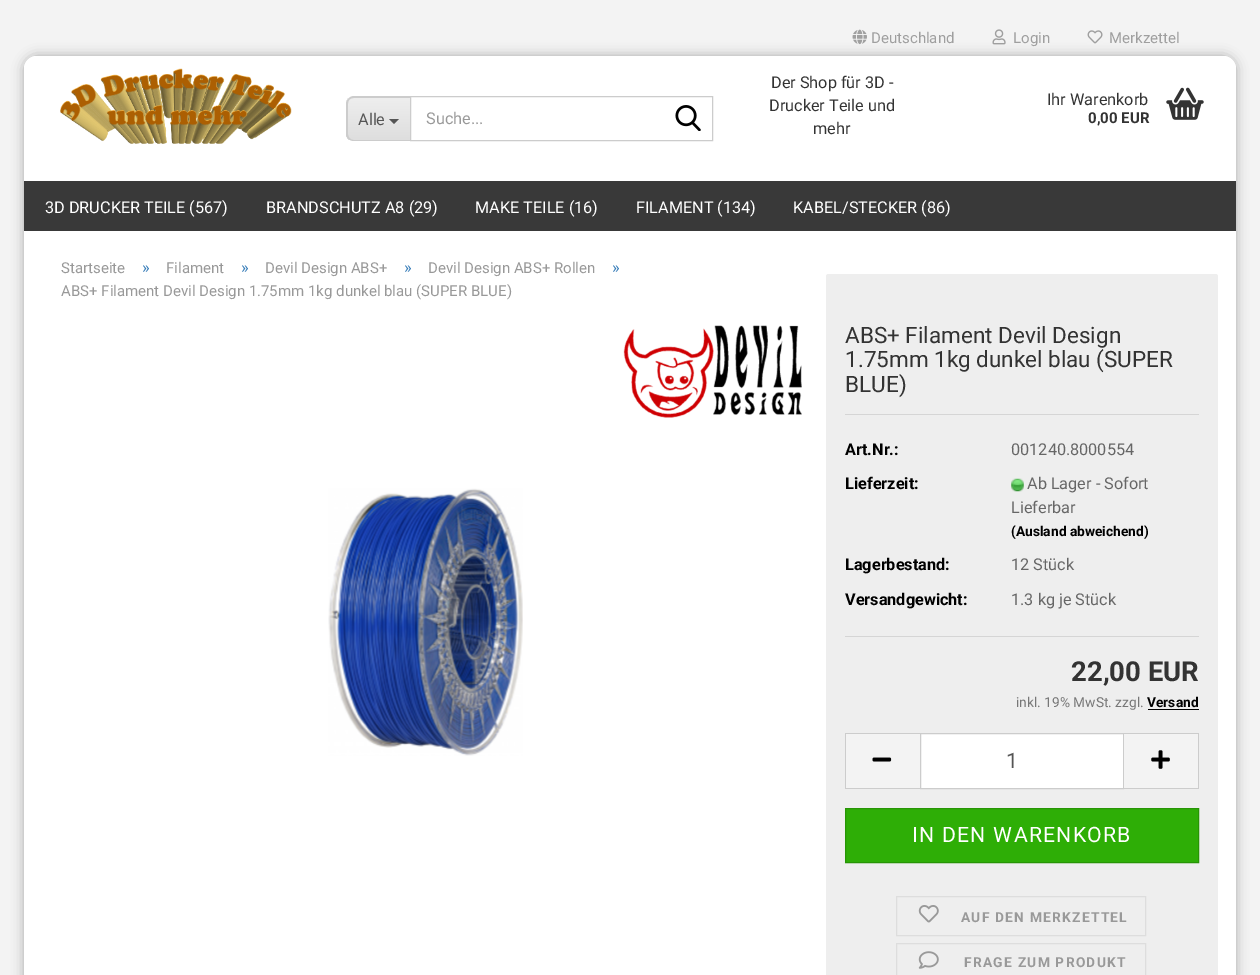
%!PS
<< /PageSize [1260 975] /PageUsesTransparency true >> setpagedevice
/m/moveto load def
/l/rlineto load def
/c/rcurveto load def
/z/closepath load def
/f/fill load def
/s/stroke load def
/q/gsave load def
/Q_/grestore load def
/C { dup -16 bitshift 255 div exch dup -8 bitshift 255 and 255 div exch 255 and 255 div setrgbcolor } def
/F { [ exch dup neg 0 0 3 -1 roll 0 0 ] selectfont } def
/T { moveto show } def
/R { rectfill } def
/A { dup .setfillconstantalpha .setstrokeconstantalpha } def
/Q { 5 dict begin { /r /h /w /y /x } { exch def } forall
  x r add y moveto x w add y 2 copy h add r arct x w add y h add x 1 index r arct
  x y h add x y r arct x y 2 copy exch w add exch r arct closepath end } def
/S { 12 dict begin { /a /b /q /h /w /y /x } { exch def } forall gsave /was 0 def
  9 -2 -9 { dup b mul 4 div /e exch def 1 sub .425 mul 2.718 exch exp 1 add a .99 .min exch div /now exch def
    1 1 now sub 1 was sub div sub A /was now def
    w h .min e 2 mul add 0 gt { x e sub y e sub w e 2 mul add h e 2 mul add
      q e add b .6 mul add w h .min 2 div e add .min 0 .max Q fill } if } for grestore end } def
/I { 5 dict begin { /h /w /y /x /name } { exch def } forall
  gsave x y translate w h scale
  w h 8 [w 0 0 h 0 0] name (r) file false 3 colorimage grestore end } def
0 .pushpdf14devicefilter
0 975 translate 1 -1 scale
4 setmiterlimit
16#F3F3F3 C
0 0 1260 975 R
16#000000 C
24 56 1212 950 13 6 .3 S
16#FFFFFF C
24 56 1212 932 13 Q f
37 56 m 1186 0 l 7 0 13 6 13 13 c 0 159.5 l 0 1.5 -1 2.5 -2.5 2.5 c -1207 0 l -1.5 0 -2.5 -1 -2.5 -2.5 c 0 -159.5 l 0 -7 6 -13 13 -13 c z f
(1.rgb) 852 29 15 16 I
/Roboto-Regular 15 F
16#9F9F9F C
(Deutschland) 871 43 T
(2.rgb) 992 29 14 16 I
(Login) 1013 43 T
(3.rgb) 1087 30 16 14 I
(Merkzettel) 1109 43 T
(4.rgb) 60 68 232 76 I
16#F3F3F3 C
354 96 m 56 0 l 0 45 l -56 0 l -4.5 0 -8 -3.5 -8 -8 c 0 -29 l 0 -4.5 3.5 -8 8 -8 c z f
q
354 96 m 56 0 l 0 45 l -56 0 l -4.5 0 -8 -3.5 -8 -8 c 0 -29 l 0 -4.5 3.5 -8 8 -8 c z clip newpath
q 346 98 m 64 0 l 0 42 l -64 0 l z clip newpath
<< /ShadingType 2 /ColorSpace /DeviceRGB /Coords [379 98 379 140] /Extend [true true] /Function << /FunctionType 2 /Domain [0 1] /C0 [.933 .933 .933] /C1 [.871 .871 .871] /N 1 >> >> shfill Q_
Q_
16#CCCCCC C
354 96 m 56 0 l 0 45 l -56 0 l -4 0 -8 -3 -8 -7 c 0 -30 l 0 -4 4 -8 8 -8 c z 354 98 m 56 0 l 0 42 l -56 0 l -4 0 -6 -3 -6 -6 c 0 -30 l 0 -4 2 -6 6 -6 c z eofill
/Roboto-Regular 16.25 F
16#555555 C
(Alle) 358 125 T
389 119 m 10 0 l -5 5 l z f
16#CCCCCC C
410.5 96.5 302 44 rectstroke
16#999999 C
(Suche...) 426 124 T
(5.rgb) 675 105 26 26 I
16#333333 C
(Der Shop für 3D -) 771 88 T
(Drucker Teile und) 769 111 T
(mehr) 813 134 T
(Ihr Warenkorb) 1047 105 T
/Roboto-Bold 15 F
(0,00 EUR) 1088 123 T
(6.rgb) 1166 87 38 33 I
16#393939 C
24 181 1212 50 R
/Roboto-Regular 16.25 F
16#FFFFFF C
(3D DRUCKER TEILE \(567\)) 45 213 T
(BRANDSCHUTZ A8 \(29\)) 266 213 T
(MAKE TEILE \(16\)) 475 213 T
(FILAMENT \(134\)) 636 213 T
(KABEL/STECKER \(86\)) 793 213 T
/Roboto-Regular 15 F
16#999999 C
(Startseite) 61 273 T
/Roboto-Regular 16.25 F
16#337AB7 C
(») 142 273 T
/Roboto-Regular 15 F
16#999999 C
(Filament) 166 273 T
/Roboto-Regular 16.25 F
16#337AB7 C
(») 241 273 T
/Roboto-Regular 15 F
16#999999 C
(Devil Design ABS+) 265 273 T
/Roboto-Regular 16.25 F
16#337AB7 C
(») 404 273 T
/Roboto-Regular 15 F
16#999999 C
(Devil Design ABS+ Rollen) 428 273 T
/Roboto-Regular 16.25 F
16#337AB7 C
(») 612 273 T
/Roboto-Regular 15 F
16#999999 C
(ABS+ Filament Devil Design 1.75mm 1kg dunkel blau \(SUPER BLUE\)) 61 296 T
(7.rgb) 623 325 179 93 I
(8.rgb) 328 488 195 268 I
16#EEEEEE C
826 274 392 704 2.5 Q f
16#D5D5D5 C
845 414 354 1 R
/Roboto-Regular 22.5 F
16#333333 C
(ABS+ Filament Devil Design) 845 343 T
(1.75mm 1kg dunkel blau \(SUPER) 845 367 T
(BLUE\)) 845 392 T
16#D5D5D5 C
845 636 354 1 R
/Roboto-Bold 16.25 F
16#000000 C
(Art.Nr.:) 845 455 T
/Roboto-Regular 16.25 F
16#666666 C
(001240.8000554) 1011 455 T
/Roboto-Bold 16.25 F
16#000000 C
(Lieferzeit:) 845 489 T
(9.rgb) 1011 478 13 14 I
/Roboto-Regular 16.25 F
16#666666 C
(Ab Lager - Sofort) 1027 489 T
(Lieferbar) 1011 513 T
/Roboto-Bold 13.75 F
16#000000 C
(\(Ausland abweichend\)) 1011 536 T
/Roboto-Bold 16.25 F
(Lagerbestand:) 845 570 T
/Roboto-Regular 16.25 F
16#666666 C
(12 Stück) 1011 570 T
/Roboto-Bold 16.25 F
16#000000 C
(Versandgewicht:) 845 605 T
/Roboto-Regular 16.25 F
16#666666 C
(1.3 kg je Stück) 1011 605 T
/Roboto-Bold 27.5 F
16#333333 C
(22,00 EUR) 1071 681 T
/Roboto-Regular 13.75 F
16#777777 C
(inkl. 19% MwSt. zzgl.) 1016 707 T
/Roboto-Bold 13.75 F
16#000000 C
(Versand) 1147 707 T
1148 709 51 1 R
16#F3F3F3 C
846 734 74 54 R
16#CCCCCC C
845 733 75 1 R
845 788 75 1 R
845 733 1 56 R
(10.rgb) 872 757 20 5 I
16#FFFFFF C
920.5 733.5 m 203 0 l 0 55 l -203 0 l z q f Q_
16#CCCCCC C
s
/Roboto-Regular 21.25 F
16#555555 C
(1) 1006 768 T
16#F3F3F3 C
1124 734 74 54 R
16#CCCCCC C
1124 733 75 1 R
1198 733 1 56 R
1124 788 75 1 R
(11.rgb) 1151 750 19 19 I
16#2EAE06 C
845.5 808.5 m 353 0 l 0 54 l -353 0 l z q f Q_
16#279505 C
s
16#FFFFFF C
912 842 m 1.25 0 (IN DEN WARENKORB) ashow
16#DDDDDD C
896.5 896.5 249 39 rectstroke
(12.rgb) 918 905 21 18 I
/Roboto-Bold 13.75 F
16#999999 C
961 922 m 1.25 0 (AUF DEN MERKZETTEL) ashow
16#DDDDDD C
896.5 943.5 249 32 rectstroke
(13.rgb) 918 951 21 18 I
16#999999 C
964 967 m 1.25 0 (FRAGE ZUM PRODUKT) ashow
.poppdf14devicefilter showpage
